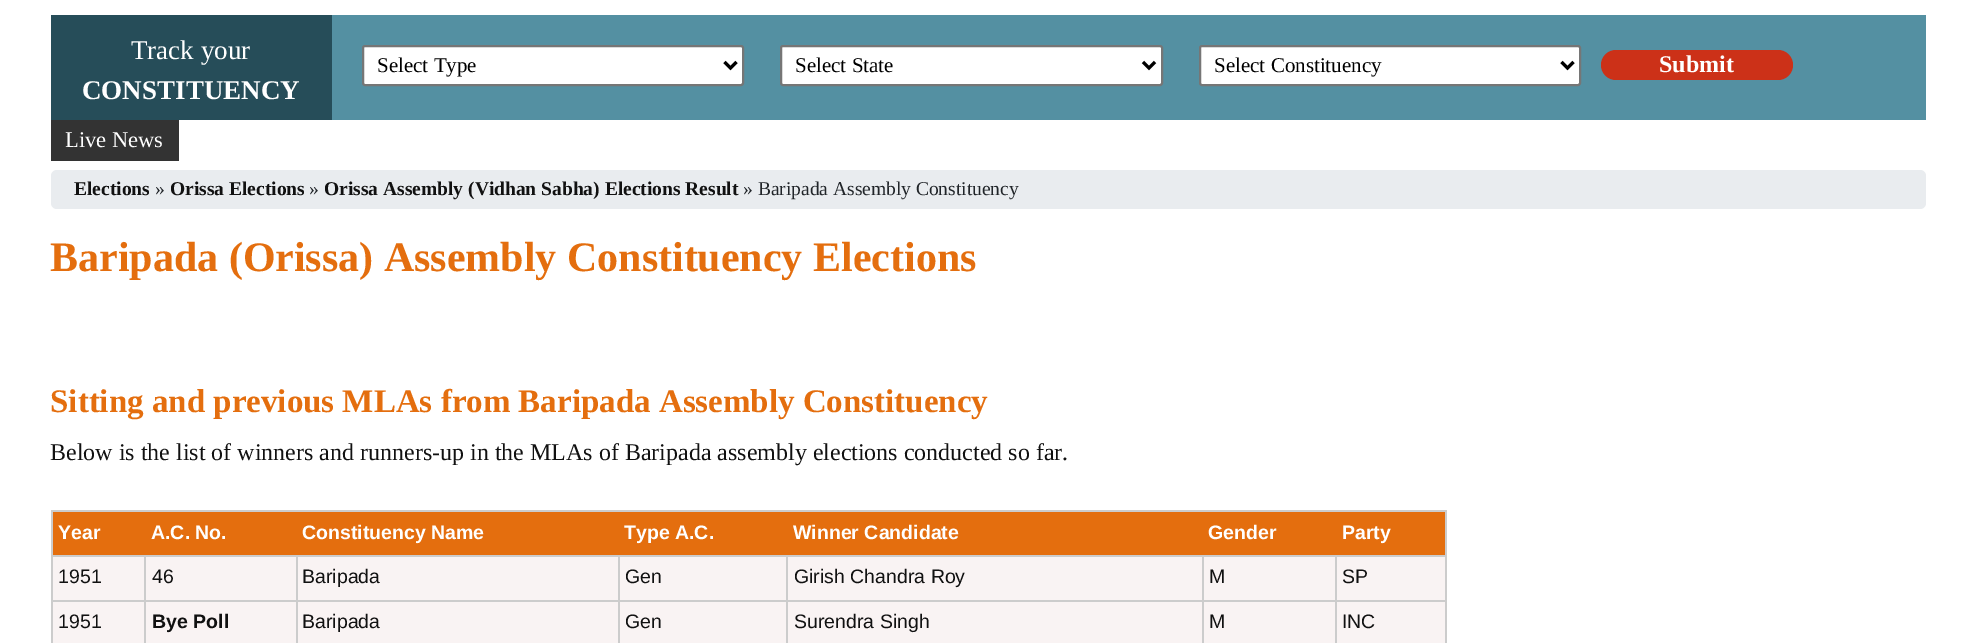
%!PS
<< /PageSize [1975 643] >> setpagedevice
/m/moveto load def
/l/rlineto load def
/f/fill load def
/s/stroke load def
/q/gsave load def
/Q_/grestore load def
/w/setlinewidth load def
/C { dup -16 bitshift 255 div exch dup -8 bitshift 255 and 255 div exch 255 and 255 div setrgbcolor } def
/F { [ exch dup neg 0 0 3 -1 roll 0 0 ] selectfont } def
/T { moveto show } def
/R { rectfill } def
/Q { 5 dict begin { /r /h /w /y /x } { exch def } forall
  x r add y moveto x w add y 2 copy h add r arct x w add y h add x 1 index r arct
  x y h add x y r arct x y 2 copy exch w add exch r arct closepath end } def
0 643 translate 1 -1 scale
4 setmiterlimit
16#FFFFFF C
0 0 1975 643 R
16#5490A2 C
332 15 1594 105 R
16#264D59 C
51 15 281 105 R
/LiberationSerif-Regular 27 F
16#FFFFFF C
(Track your) 131 59 T
/LiberationSerif-Bold 27 F
(CONSTITUENCY) 82 99 T
363 46 380 39 2 Q q f Q_
16#767676 C
2 w
s
16#000000 C
3 w
724.5 62 m 6 6 l 6 -6 l s
/LiberationSerif-Regular 21 F
(Select Type) 377 72 T
16#FFFFFF C
781 46 381 39 2 Q q f Q_
16#767676 C
2 w
s
16#000000 C
3 w
1143 62 m 6 6 l 6 -6 l s
(Select State) 795 72 T
16#FFFFFF C
1200 46 380 39 2 Q q f Q_
16#767676 C
2 w
s
16#000000 C
3 w
1561.5 62 m 6 6 l 6 -6 l s
(Select Constituency) 1214 72 T
16#CC3118 C
1601 50 192 30 15 Q f
/LiberationSerif-Bold 24 F
16#FFFFFF C
(Submit) 1659 72 T
16#333333 C
51 120 128 41 R
/LiberationSerif-Regular 22.5 F
16#FFFFFF C
(Live News) 65 147 T
16#E9ECEF C
51 170 1875 39 6 Q f
/LiberationSerif-Bold 19.5 F
16#111111 C
(Elections) 74 195 T
/LiberationSerif-Regular 19.5 F
16#212529 C
(») 155 195 T
/LiberationSerif-Bold 19.5 F
16#111111 C
(Orissa Elections) 170 195 T
/LiberationSerif-Regular 19.5 F
16#212529 C
(») 309 195 T
/LiberationSerif-Bold 19.5 F
16#111111 C
(Orissa Assembly \(Vidhan Sabha\) Elections Result) 324 195 T
/LiberationSerif-Regular 19.5 F
16#212529 C
(» Baripada Assembly Constituency) 743 195 T
/LiberationSerif-Bold 42 F
16#E46E0E C
(Baripada \(Orissa\) Assembly Constituency Elections) 50 271 T
/LiberationSerif-Bold 33 F
(Sitting and previous MLAs from Baripada Assembly Constituency) 50 412 T
/LiberationSerif-Regular 24 F
16#111111 C
(Below is the list of winners and runners-up in the MLAs of Baripada assembly elections conducted so far.) 50 460 T
16#CCCCCC C
51 510 1395 2 R
1445 510 2 133 R
51 510 2 133 R
16#E46E0E C
53 512 1392 43 R
/LiberationSans-Bold 19.5 F
16#FFFFFF C
(Year) 58 539 T
(A.C. No.) 151 539 T
(Constituency Name) 302 539 T
(Type A.C.) 624 539 T
(Winner Candidate) 793 539 T
(Gender) 1208 539 T
(Party) 1342 539 T
16#F9F3F3 C
53 557 91 43 R
16#CCCCCC C
1335 555 111 2 R
1335 600 111 2 R
1335 600 2 43 R
1202 600 135 2 R
1335 555 2 47 R
1202 555 135 2 R
1202 600 2 43 R
786 600 417 2 R
1202 555 2 47 R
786 555 417 2 R
786 600 2 43 R
618 600 170 2 R
786 555 2 47 R
618 555 170 2 R
618 600 2 43 R
296 600 324 2 R
618 555 2 47 R
296 555 324 2 R
296 600 2 43 R
144 600 153 2 R
296 555 2 47 R
144 555 153 2 R
144 600 2 43 R
51 600 95 2 R
144 555 2 47 R
51 555 95 2 R
/LiberationSans-Regular 19.5 F
16#111111 C
(1951) 58 583 T
16#F9F3F3 C
146 557 150 43 R
16#111111 C
(46) 152 583 T
16#F9F3F3 C
298 557 320 43 R
16#111111 C
(Baripada) 302 583 T
16#F9F3F3 C
620 557 166 43 R
16#111111 C
(Gen) 625 583 T
16#F9F3F3 C
788 557 414 43 R
16#111111 C
(Girish Chandra Roy) 794 583 T
16#F9F3F3 C
1204 557 131 43 R
16#111111 C
(M) 1209 583 T
16#F9F3F3 C
1337 557 108 43 R
16#111111 C
(SP) 1342 583 T
16#F9F3F3 C
53 602 91 41 R
16#111111 C
(1951) 58 628 T
16#F9F3F3 C
146 602 150 41 R
/LiberationSans-Bold 19.5 F
16#111111 C
(Bye Poll) 152 628 T
16#F9F3F3 C
298 602 320 41 R
/LiberationSans-Regular 19.5 F
16#111111 C
(Baripada) 302 628 T
16#F9F3F3 C
620 602 166 41 R
16#111111 C
(Gen) 625 628 T
16#F9F3F3 C
788 602 414 41 R
16#111111 C
(Surendra Singh) 794 628 T
16#F9F3F3 C
1204 602 131 41 R
16#111111 C
(M) 1209 628 T
16#F9F3F3 C
1337 602 108 41 R
16#111111 C
(INC) 1342 628 T
showpage
